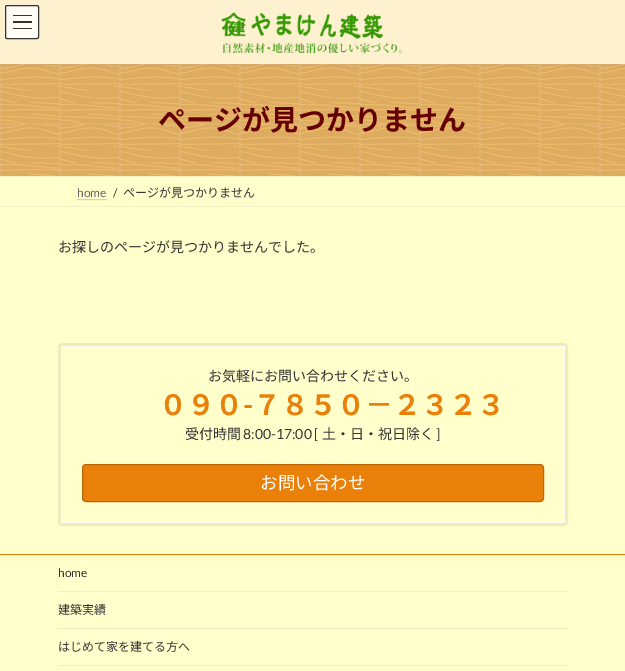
%!PS
<< /PageSize [625 671] /PageUsesTransparency true >> setpagedevice
/m/moveto load def
/l/rlineto load def
/c/rcurveto load def
/z/closepath load def
/f/fill load def
/s/stroke load def
/q/gsave load def
/Q_/grestore load def
/w/setlinewidth load def
/C { dup -16 bitshift 255 div exch dup -8 bitshift 255 and 255 div exch 255 and 255 div setrgbcolor } def
/F { [ exch dup neg 0 0 3 -1 roll 0 0 ] selectfont } def
/T { moveto show } def
/R { rectfill } def
/A { dup .setfillconstantalpha .setstrokeconstantalpha } def
/Q { 5 dict begin { /r /h /w /y /x } { exch def } forall
  x r add y moveto x w add y 2 copy h add r arct x w add y h add x 1 index r arct
  x y h add x y r arct x y 2 copy exch w add exch r arct closepath end } def
/S { 12 dict begin { /a /b /q /h /w /y /x } { exch def } forall gsave /was 0 def
  9 -2 -9 { dup b mul 4 div /e exch def 1 sub .425 mul 2.718 exch exp 1 add a .99 .min exch div /now exch def
    1 1 now sub 1 was sub div sub A /was now def
    w h .min e 2 mul add 0 gt { x e sub y e sub w e 2 mul add h e 2 mul add
      q e add b .6 mul add w h .min 2 div e add .min 0 .max Q fill } if } for grestore end } def
/I { 5 dict begin { /h /w /y /x /name } { exch def } forall
  gsave x y translate w h scale
  w h 8 [w 0 0 h 0 0] name (r) file false 3 colorimage grestore end } def
0 .pushpdf14devicefilter
0 671 translate 1 -1 scale
4 setmiterlimit
16#FFFFCC C
0 0 625 671 R
(2.rgb) 0 64 625 112 I
16#000000 C
0 1 625 64 0 1.5 .05 S
16#FEF1CF C
0 0 625 64 R
(1.rgb) 221 12 181 42 I
16#FFFCF5 C
5 5 34 34 2 Q f
16#333231 C
13 15 19 1 R
13 21 19 2 R
13 28 19 1 R
16#333333 C
5.5 5.5 33 33 1.5 Q s
/NotoSansJP-Bold 28 F
16#660000 C
(ページが見つかりません) 158 130 T
16#F0F0C0 C
0 176 625 1 R
0 206 625 1 R
/Lato-Regular 12 F
16#666666 C
(home) 77 197 T
16#B3B38F C
[1 1] 0 setdash
77.5 199.5 m 29.5 0 l s
16#333333 C
(/) 113 197 T
/NotoSansJP-Regular 12 F
(ページが見つかりません) 123 197 T
/NotoSansJP-Regular 14 F
(お探しのページが見つかりませんでした。) 58 252 T
16#EDEDBE C
3 w
[] 0 setdash
59.5 344.5 507 180 2.5 Q s
0.8 A
16#FFFFFF C
62 346 m -1 0 -1 0 -1 1 c 0 175 l 0 1 0 1 1 1 c 502 0 l 1 0 1 0 1 -1 c 0 -175 l 0 -1 0 -1 -1 -1 c z 62 347 m 0 175 l 502 0 l 0 -175 l z eofill
1 A
16#333333 C
(お気軽にお問い合わせください。) 208 381 T
/NotoSansJP-Bold 28 F
16#E88009 C
(０９０) 159 415 T
/Lato-Bold 28 F
(-) 243 415 T
/NotoSansJP-Bold 28 F
(７８５０－２３２３) 253 415 T
/NotoSansJP-Regular 14 F
16#333333 C
(受付時間) 185 439 T
/Lato-Regular 14 F
(8:00-17:00 [) 243 439 T
/NotoSansJP-Regular 14 F
(土・日・祝日除く) 322 439 T
/Lato-Regular 14 F
(]) 436 439 T
16#E88009 C
82.5 464.5 461 37 3.5 Q q f Q_
16#BA6607 C
1 w
s
/NotoSansJP-Regular 17.5 F
16#FFFFFF C
(お問い合わせ) 260 489 T
16#E88009 C
0 554 625 1 R
16#F0F0C0 C
58 591 510 1 R
/Lato-Regular 12 F
16#333333 C
(home) 58 577 T
16#F0F0C0 C
58 628 510 1 R
/NotoSansJP-Regular 12 F
16#333333 C
(建築実績) 58 614 T
16#F0F0C0 C
58 665 510 1 R
16#333333 C
(はじめて家を建てる方へ) 58 651 T
.poppdf14devicefilter showpage
